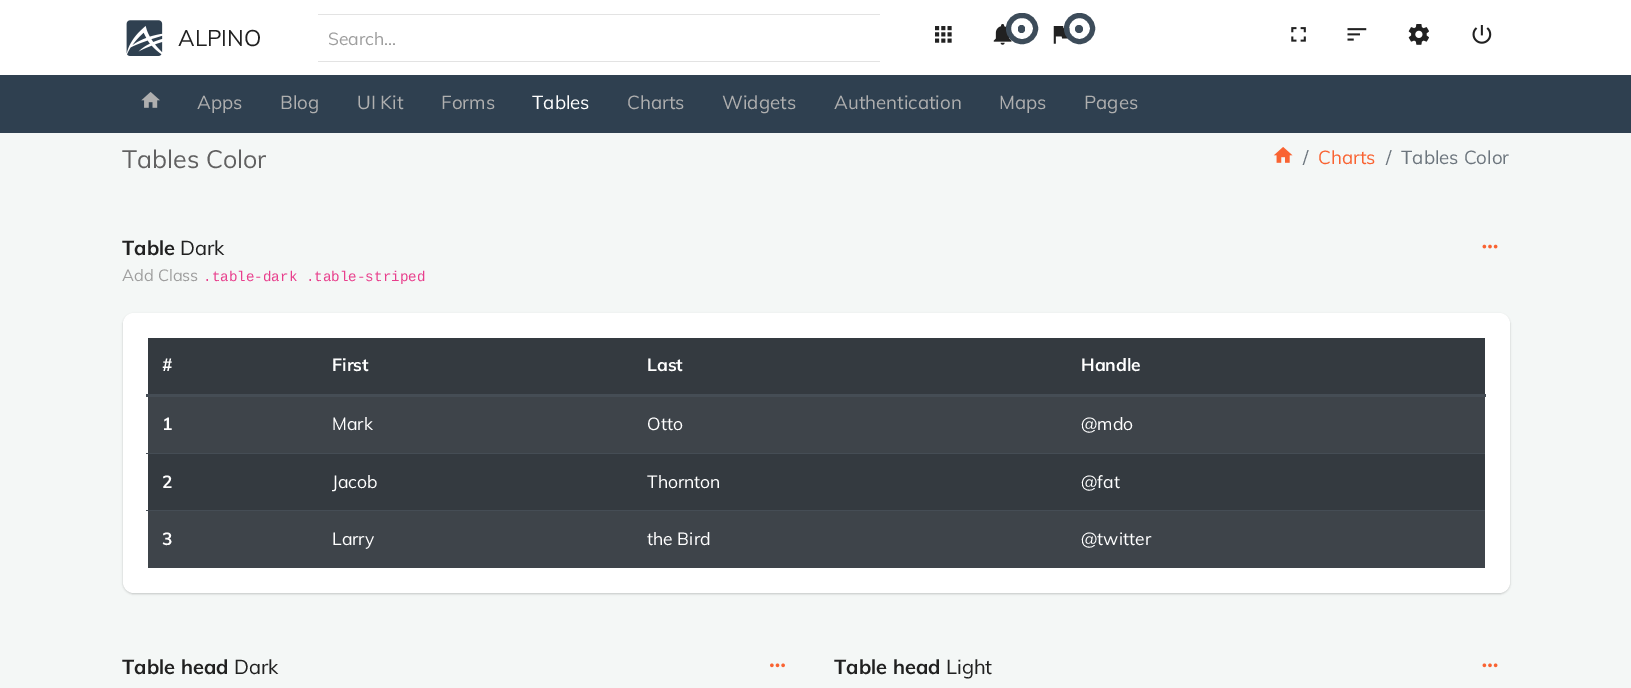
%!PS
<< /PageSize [1631 688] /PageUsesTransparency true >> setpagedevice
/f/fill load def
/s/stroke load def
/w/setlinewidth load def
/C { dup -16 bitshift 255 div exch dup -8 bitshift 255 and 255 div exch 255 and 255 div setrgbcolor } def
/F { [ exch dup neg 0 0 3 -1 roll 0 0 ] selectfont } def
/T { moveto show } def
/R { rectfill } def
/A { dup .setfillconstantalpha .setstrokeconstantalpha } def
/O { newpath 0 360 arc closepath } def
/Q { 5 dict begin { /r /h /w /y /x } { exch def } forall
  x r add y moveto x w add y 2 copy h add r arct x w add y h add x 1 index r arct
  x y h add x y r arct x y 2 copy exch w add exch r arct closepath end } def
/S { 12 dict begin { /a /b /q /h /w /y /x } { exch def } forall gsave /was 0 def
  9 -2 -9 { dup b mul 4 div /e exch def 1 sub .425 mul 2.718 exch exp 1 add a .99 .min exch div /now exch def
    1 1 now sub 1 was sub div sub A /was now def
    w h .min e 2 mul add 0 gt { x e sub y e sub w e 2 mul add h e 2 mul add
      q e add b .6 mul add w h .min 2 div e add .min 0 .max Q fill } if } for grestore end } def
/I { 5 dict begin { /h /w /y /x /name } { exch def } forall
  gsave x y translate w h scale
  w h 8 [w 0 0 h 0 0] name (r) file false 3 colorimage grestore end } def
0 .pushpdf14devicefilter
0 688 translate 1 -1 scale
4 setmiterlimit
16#F4F7F6 C
0 0 1631 688 R
16#FFFFFF C
0 0 1631 75 R
(1.rgb) 126 20 37 36 I
/Muli-Regular 22.5 F
16#212121 C
(ALPINO) 178 46 T
16#E3E3E3 C
318 14 562 1 R
318 61 562 1 R
/Muli-Regular 17.5 F
16#9E9E9E C
(Search...) 328 45 T
(2.rgb) 935 26 17 17 I
(3.rgb) 993 24 19 21 I
16#3D4C5A C
1018 25 7 8 3.5 Q f
5 w
1008.5 15.5 27 26 13 Q s
(4.rgb) 1053 26 17 18 I
1079 29 4 O f
1079.5 28.5 13 O s
(5.rgb) 1291 27 15 15 I
(6.rgb) 1347 28 20 13 I
(7.rgb) 1408 24 21 21 I
(8.rgb) 1472 25 20 19 I
16#2F4050 C
0 75 1631 58 R
(9.rgb) 141 92 19 16 I
/Muli-Regular 18.75 F
16#AFAFAF C
(Apps) 197 109 T
(Blog) 280 109 T
(UI Kit) 357 109 T
(Forms) 441 109 T
16#FFFFFF C
(Tables) 532 109 T
16#AFAFAF C
(Charts) 627 109 T
(Widgets) 722 109 T
(Authentication) 834 109 T
(Maps) 999 109 T
(Pages) 1084 109 T
/Muli-Regular 25 F
16#616161 C
(Tables Color) 122 168 T
(10.rgb) 1273 147 20 16 I
/Muli-Regular 18.75 F
16#6C757D C
(/) 1303 164 T
16#F96332 C
(Charts) 1318 164 T
16#6C757D C
(/) 1386 164 T
(Tables Color) 1401 164 T
/Muli-Bold 20 F
16#212121 C
(Table) 122 255 T
/Muli-Regular 20 F
(Dark) 180 255 T
/Muli-Regular 16.25 F
16#9E9E9E C
(Add Class) 122 281 T
/LiberationMono-Regular 14.25 F
16#E83E8C C
(.table-dark .table-striped) 203 281 T
(11.rgb) 1482 244 16 5 I
16#000000 C
123 314 1387 280 11 1 .2 S
16#FFFFFF C
123 313 1387 280 11 Q f
16#343A40 C
148 338 1337 172 R
/Muli-Bold 17.5 F
16#FFFFFF C
(#) 162 371 T
(First) 332 371 T
(Last) 647 371 T
16#454D55 C
146 394 1340 3 R
16#FFFFFF C
(Handle) 1081 371 T
16#3E444A C
148 397 1337 56 R
16#FFFFFF C
(1) 162 430 T
/Muli-Regular 17.5 F
(Mark) 332 430 T
(Otto) 647 430 T
(@mdo) 1081 430 T
/Muli-Bold 17.5 F
(2) 162 488 T
/Muli-Regular 17.5 F
(Jacob) 332 488 T
(Thornton) 647 488 T
16#454D55 C
146 453 1339 1 R
16#FFFFFF C
(@fat) 1081 488 T
16#3E444A C
148 511 1337 57 R
/Muli-Bold 17.5 F
16#FFFFFF C
(3) 162 545 T
/Muli-Regular 17.5 F
(Larry) 332 545 T
(the Bird) 647 545 T
16#454D55 C
146 510 1339 1 R
16#FFFFFF C
(@twitter) 1081 545 T
/Muli-Bold 20 F
16#212121 C
(Table head) 122 674 T
/Muli-Regular 20 F
(Dark) 234 674 T
(12.rgb) 770 663 15 5 I
/Muli-Bold 20 F
(Table head) 834 674 T
/Muli-Regular 20 F
(Light) 946 674 T
(13.rgb) 1482 663 16 5 I
.poppdf14devicefilter showpage
